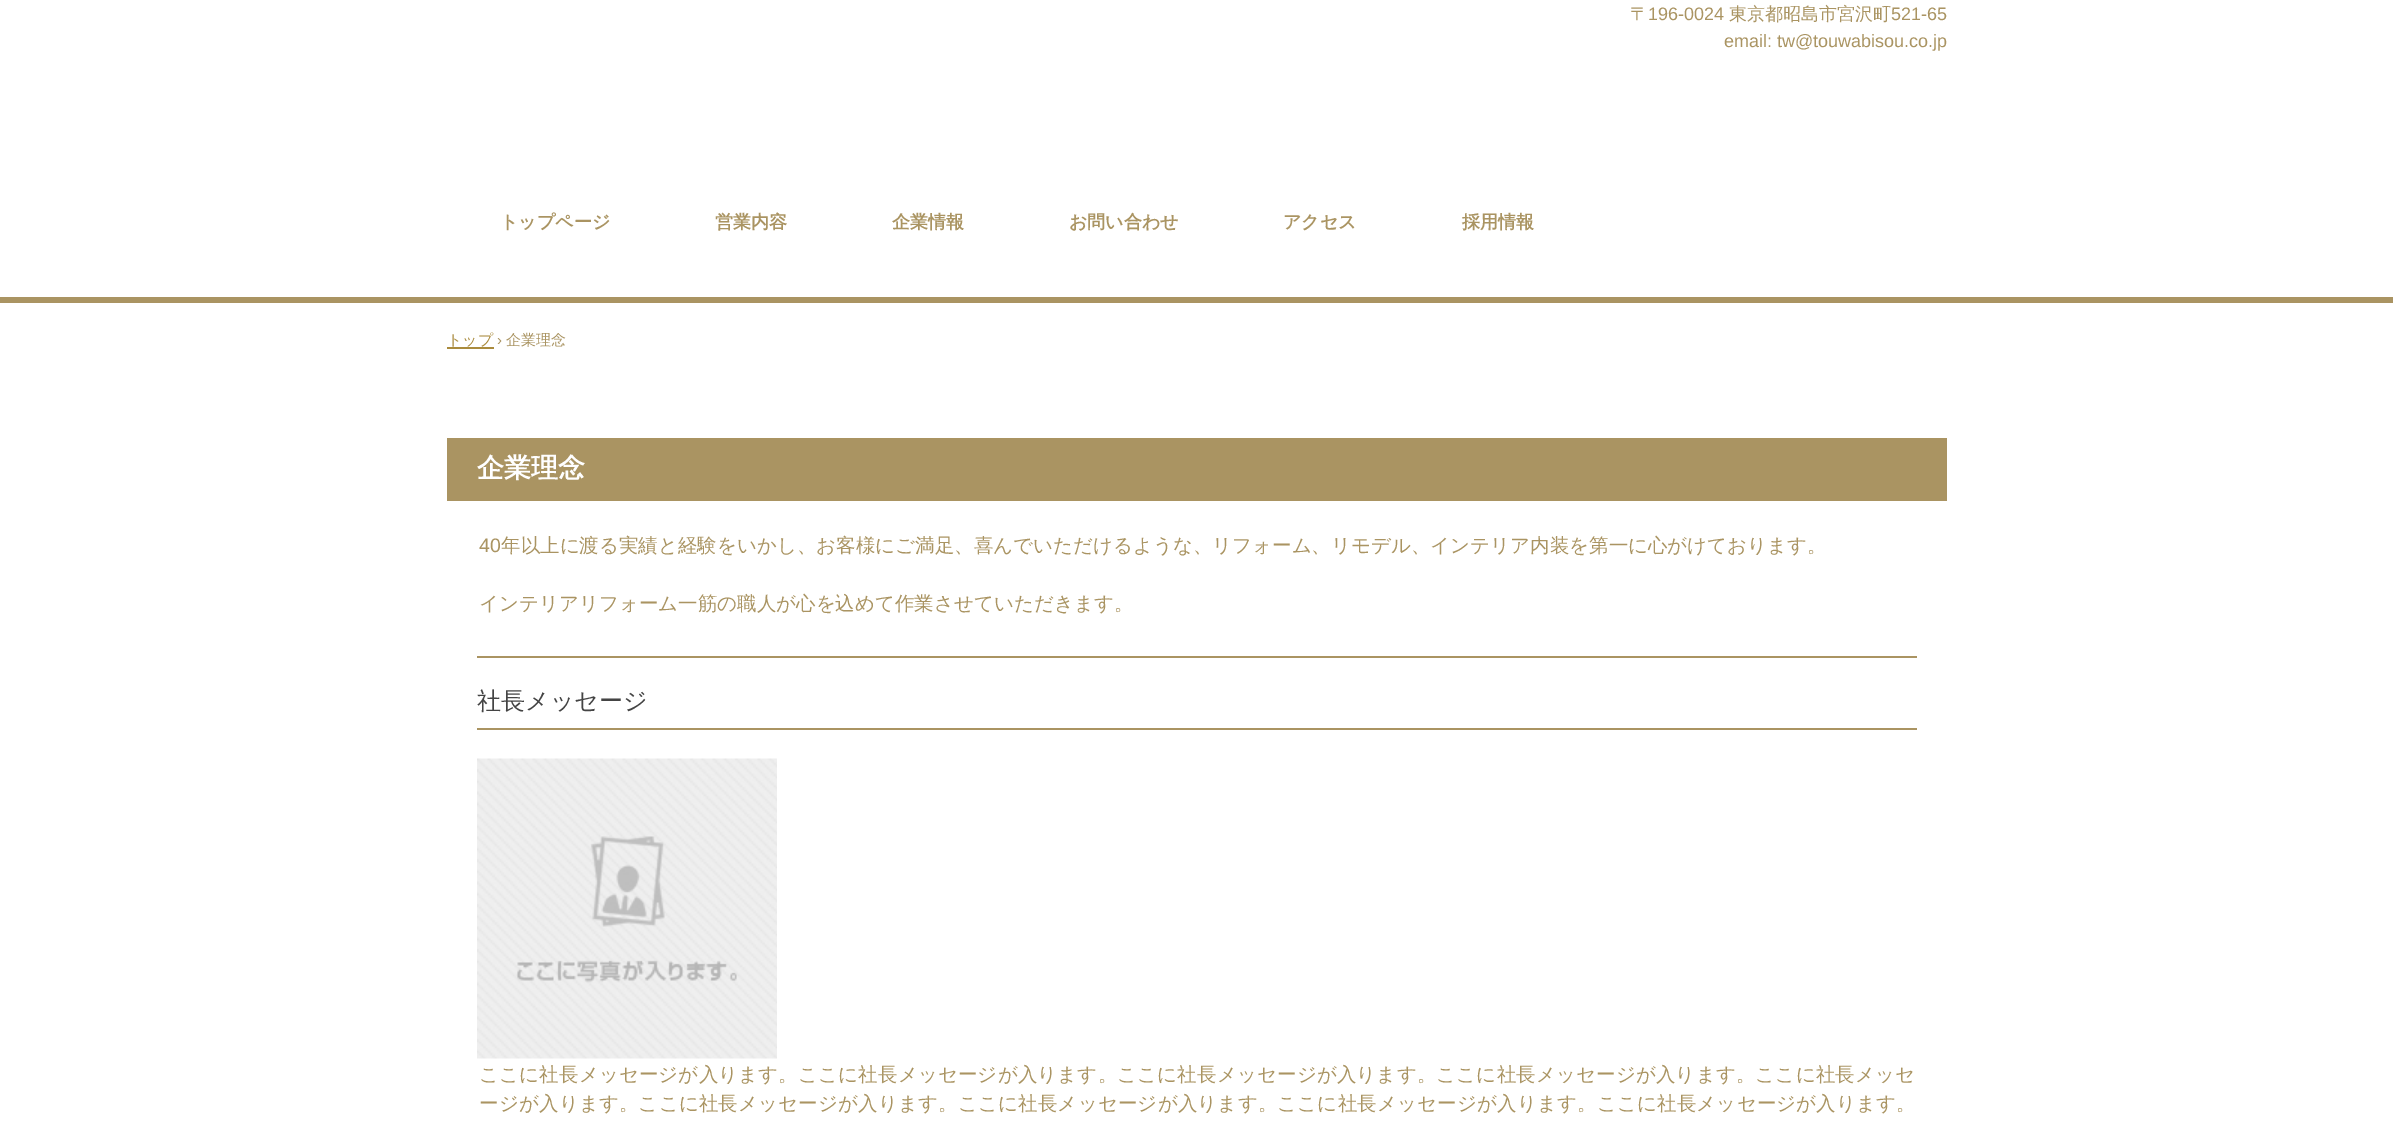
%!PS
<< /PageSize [2393 1129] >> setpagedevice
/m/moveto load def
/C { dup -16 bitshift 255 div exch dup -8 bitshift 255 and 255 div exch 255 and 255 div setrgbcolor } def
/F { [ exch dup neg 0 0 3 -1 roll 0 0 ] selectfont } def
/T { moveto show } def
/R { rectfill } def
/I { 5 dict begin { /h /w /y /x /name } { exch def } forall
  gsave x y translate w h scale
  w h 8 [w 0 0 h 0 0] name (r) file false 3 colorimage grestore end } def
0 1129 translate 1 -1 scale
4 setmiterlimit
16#FFFFFF C
0 0 2393 1129 R
/WenQuanYiZenHei-Medium 18 F
16#AA9462 C
(〒) 1630 20 T
/LiberationSans-Regular 18 F
(196-0024) 1648 20 T
/WenQuanYiZenHei-Medium 18 F
(東京都昭島市宮沢町) 1729 20 T
/LiberationSans-Regular 18 F
(521-65) 1891 20 T
(email: tw@touwabisou.co.jp) 1724 47 T
0 297 2393 6 R
/WenQuanYiZenHei-Bold 18 F
(トップページ) 500 228 T
(営業内容) 715 228 T
(企業情報) 892 228 T
(お問い合わせ) 1069 228 T
(アクセス) 1283 228 T
(採用情報) 1462 228 T
/WenQuanYiZenHei-Medium 15 F
16#AA8B3D C
(トップ) 447 345 T
447 347 47 2 R
/LiberationSans-Regular 15 F
16#AA9462 C
(›) 497 345 T
/WenQuanYiZenHei-Medium 15 F
(企業理念) 506 345 T
447 438 1500 63 R
/WenQuanYiZenHei-Bold 27 F
16#FFFFFF C
(企業理念) 477 477 T
/LiberationSans-Regular 19.5 F
16#AA9462 C
(40) 479 552 T
/WenQuanYiZenHei-Medium 19.5 F
(年以上に渡る実績と経験をいかし、お客様にご満足、喜んでいただけるような、リフォーム、リモデル、インテリア内装を第一に心がけております。) 501 552 T
(インテリアリフォーム一筋の職人が心を込めて作業させていただきます。) 479 610 T
477 656 1440 2 R
477 728 1440 2 R
/WenQuanYiZenHei-Medium 24 F
16#444444 C
(社長メッセージ) 477 709 T
(1.rgb) 477 758 300 301 I
/WenQuanYiZenHei-Medium 19.5 F
16#AA9462 C
479 1081 m .13 0 (ここに社長メッセージが入ります。ここに社長メッセージが入ります。ここに社長メッセージが入ります。ここに社長メッセージが入ります。ここに社長メッセ) ashow
479 1110 m .15 0 (ージが入ります。ここに社長メッセージが入ります。ここに社長メッセージが入ります。ここに社長メッセージが入ります。ここに社長メッセージが入ります。) ashow
showpage
